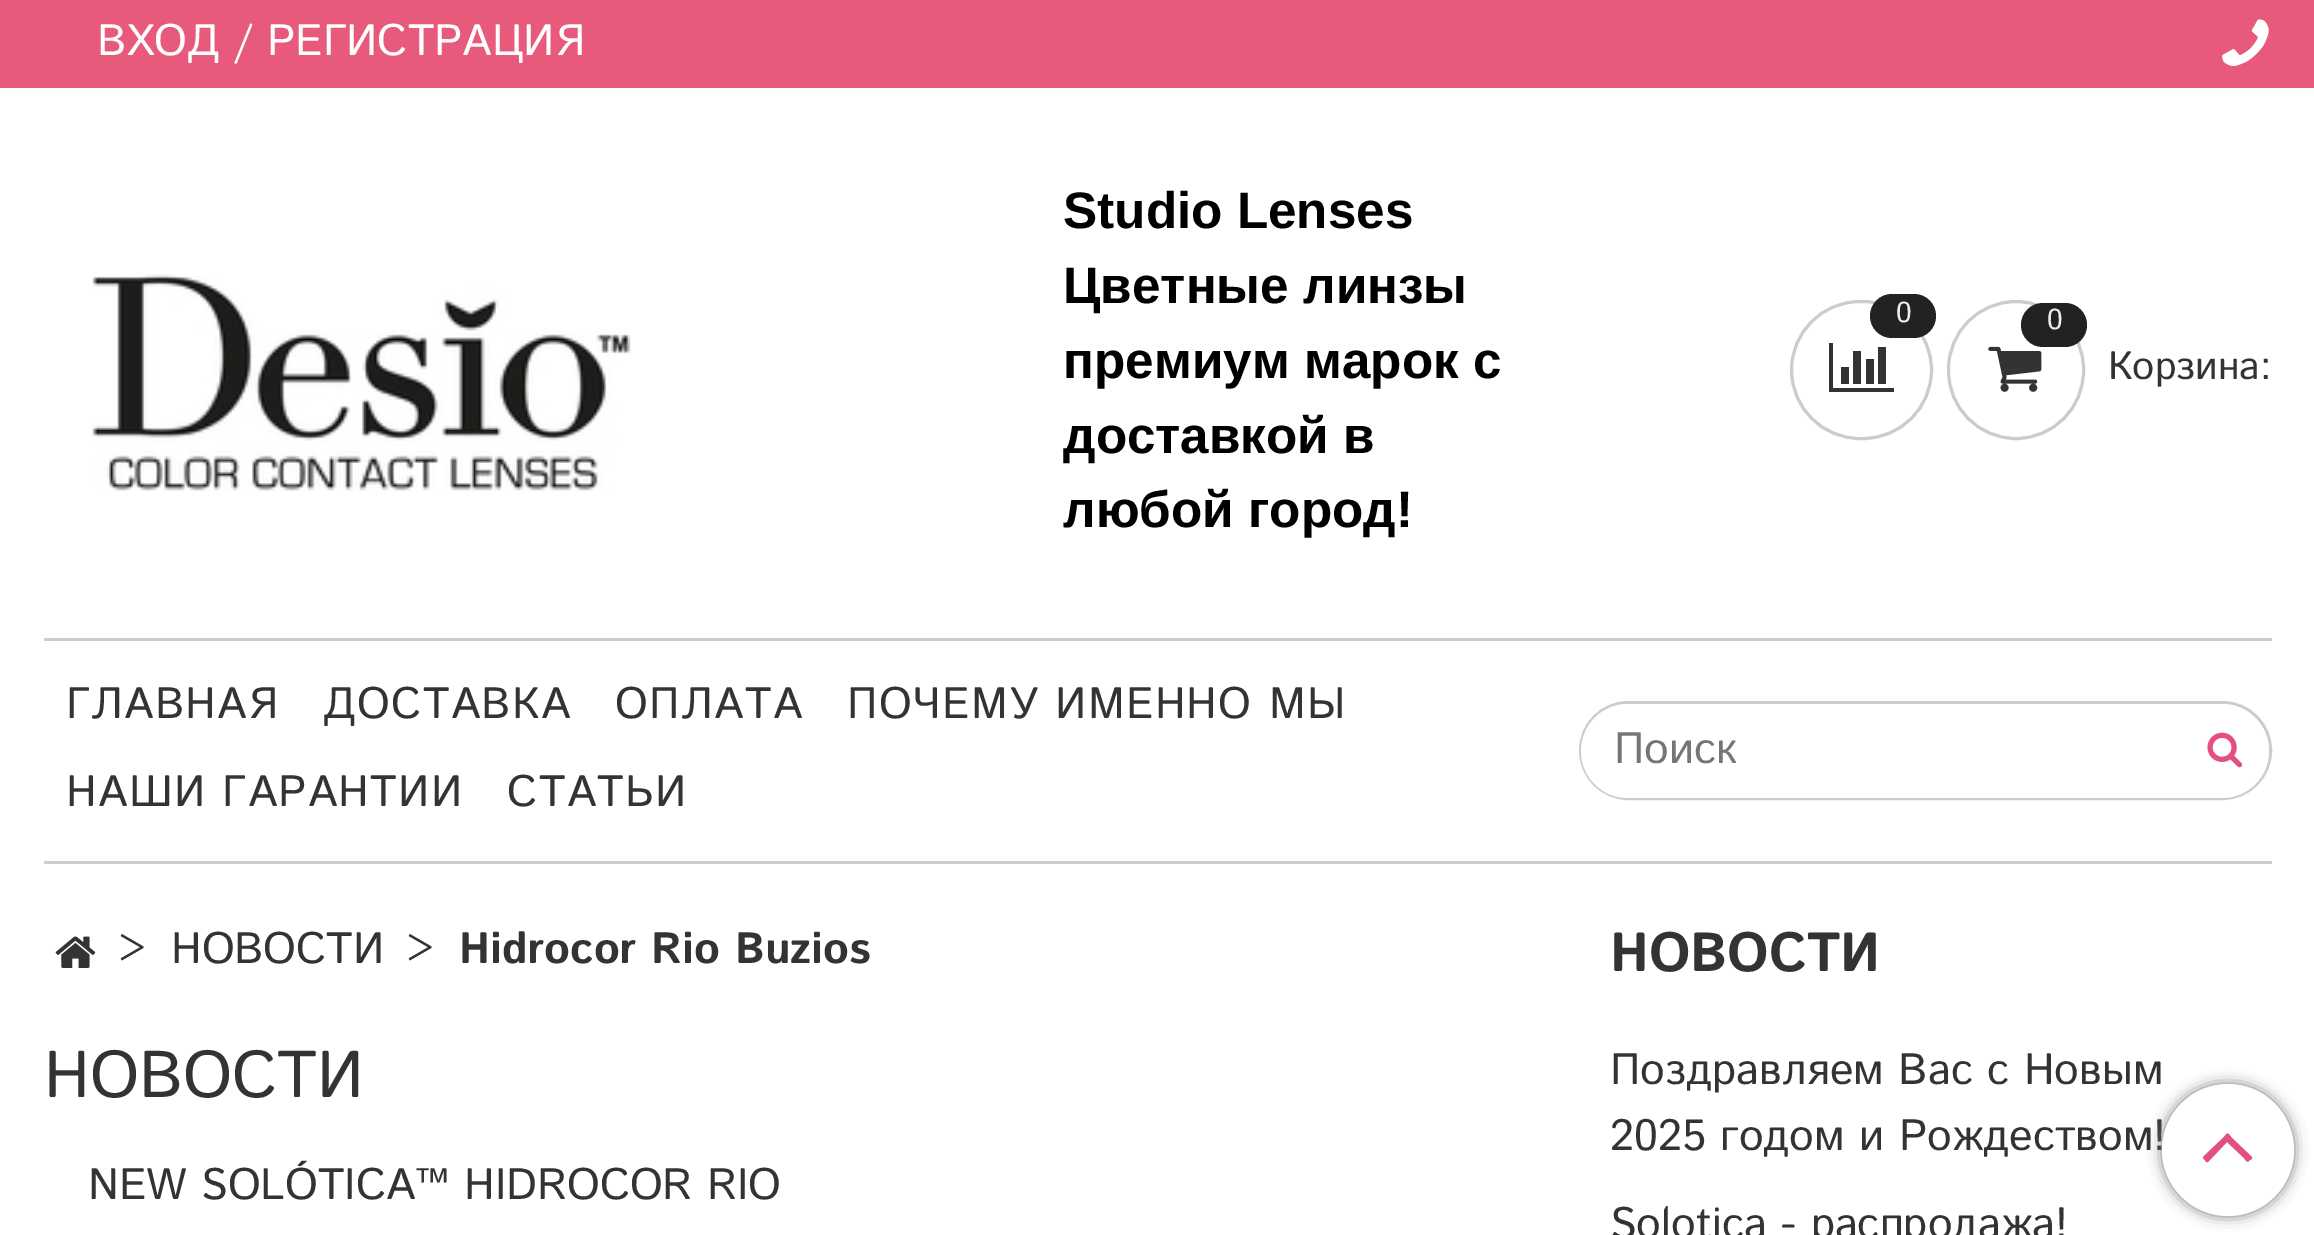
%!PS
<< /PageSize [2314 1235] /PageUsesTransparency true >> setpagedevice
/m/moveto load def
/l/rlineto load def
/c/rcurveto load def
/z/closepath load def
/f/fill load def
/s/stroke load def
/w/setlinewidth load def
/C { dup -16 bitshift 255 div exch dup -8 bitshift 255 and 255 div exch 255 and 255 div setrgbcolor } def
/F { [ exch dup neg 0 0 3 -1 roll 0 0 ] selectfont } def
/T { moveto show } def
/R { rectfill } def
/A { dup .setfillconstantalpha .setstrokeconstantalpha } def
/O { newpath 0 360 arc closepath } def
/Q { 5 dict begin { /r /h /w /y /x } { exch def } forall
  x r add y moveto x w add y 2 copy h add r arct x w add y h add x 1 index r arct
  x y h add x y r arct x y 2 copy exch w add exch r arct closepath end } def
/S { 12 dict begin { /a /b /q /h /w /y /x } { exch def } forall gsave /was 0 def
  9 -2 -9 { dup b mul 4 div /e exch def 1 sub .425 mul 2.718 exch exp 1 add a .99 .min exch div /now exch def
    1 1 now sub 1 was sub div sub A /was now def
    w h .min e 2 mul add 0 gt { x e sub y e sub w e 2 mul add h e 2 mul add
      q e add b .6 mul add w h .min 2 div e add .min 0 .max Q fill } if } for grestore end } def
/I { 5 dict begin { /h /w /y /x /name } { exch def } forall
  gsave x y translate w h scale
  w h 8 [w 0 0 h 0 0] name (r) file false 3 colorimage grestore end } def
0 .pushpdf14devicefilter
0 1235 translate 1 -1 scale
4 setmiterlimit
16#FFFFFF C
0 0 2314 1235 R
16#E85A7C C
0 0 2314 88 R
/IstokWeb-Regular 44 F
16#FFFFFF C
(ВХОД / РЕГИСТРАЦИЯ) 97 55 T
(1.rgb) 2222 19 47 47 I
(2.rgb) 92 274 539 217 I
/LiberationSans-Bold 51.25 F
16#000000 C
(Studio Lenses) 1063 228 T
(Цветные линзы) 1063 303 T
(премиум марок с) 1063 378 T
(доставкой в) 1063 453 T
(любой город!) 1063 527 T
16#CCCCCC C
3 w
1791.5 301.5 140 137 68.5 Q s
16#222222 C
1870 294 66 44 22 Q f
/IstokWeb-Regular 29 F
16#EEEEEE C
(0) 1896 322 T
16#333333 C
1849 367 m 0 17 l -8 0 l 0 -17 l z 1861 351 m 0 33 l -8 0 l 0 -33 l z 1894 388 m 0 4 l -65 0 l 0 -49 l 4 0 l 0 45 l z 1874 359 m 0 25 l -8 0 l 0 -25 l z 1886 347 m 0 37 l -8 0 l 0 -37 l z f
16#CCCCCC C
1948.5 301.5 135 137 67.5 Q s
(3.rgb) 1988 346 54 46 I
16#222222 C
2021 303 66 44 22 Q f
16#EEEEEE C
(0) 2047 329 T
/IstokWeb-Regular 39.5 F
16#333333 C
(Корзина:) 2108 379 T
16#CCCCCC C
44 638 2228 3 R
44 861 2228 3 R
/IstokWeb-Regular 44 F
16#333333 C
66 718 m 1.4 0 (ГЛАВНАЯ) ashow
323 718 m 1.4 0 (ДОСТАВКА) ashow
615 718 m 1.4 0 (ОПЛАТА) ashow
847 718 m 1.4 0 (ПОЧЕМУ ИМЕННО МЫ) ashow
66 806 m 1.4 0 (НАШИ ГАРАНТИИ) ashow
507 806 m 1.4 0 (СТАТЬИ) ashow
16#CCCCCC C
1580.5 702.5 690 96 48 Q s
16#FFFFFF C
1628 704 m 553 0 l 0 94 l -553 0 l -26 0 -47 -21 -47 -47 c 0 -26 21 -47 47 -47 c z f
16#757575 C
(Поиск) 1614 763 T
16#FFFFFF C
2181 704 m 41 0 l 26 0 47 21 47 47 c 0 26 -21 47 -47 47 c -41 0 l z f
(4.rgb) 2207 732 36 36 I
(5.rgb) 55 936 41 32 I
16#333333 C
(>) 118 963 T
(НОВОСТИ) 171 963 T
(>) 406 963 T
/IstokWeb-Bold 44 F
(Hidrocor Rio Buzios) 459 963 T
/IstokWeb-Regular 66 F
(НОВОСТИ) 44 1097 T
/IstokWeb-Regular 44 F
(NEW SOLÓTICA™ HIDROCOR RIO) 88 1199 T
/IstokWeb-Bold 55 F
(НОВОСТИ) 1610 971 T
/IstokWeb-Regular 44 F
(Поздравляем Вас с Новым) 1610 1084 T
(2025 годом и Рождеством!) 1610 1150 T
(Solotica - распродажа!) 1610 1238 T
16#777777 C
2162 1084 132 132 66 7 1 S
16#FFFFFF C
2228 1150 66 O f
16#E34F81 C
2252 1157 m 1 1 -1 3 -2 3 c -3 3 -3 2 -6 -2 c -17 -16 l -19 20 l -1 1 -3 -1 -3 -2 c -4 -3 -1 -3 2 -7 c 16 -15 l 5 -6 4 -6 9 0 c z f
.poppdf14devicefilter showpage
